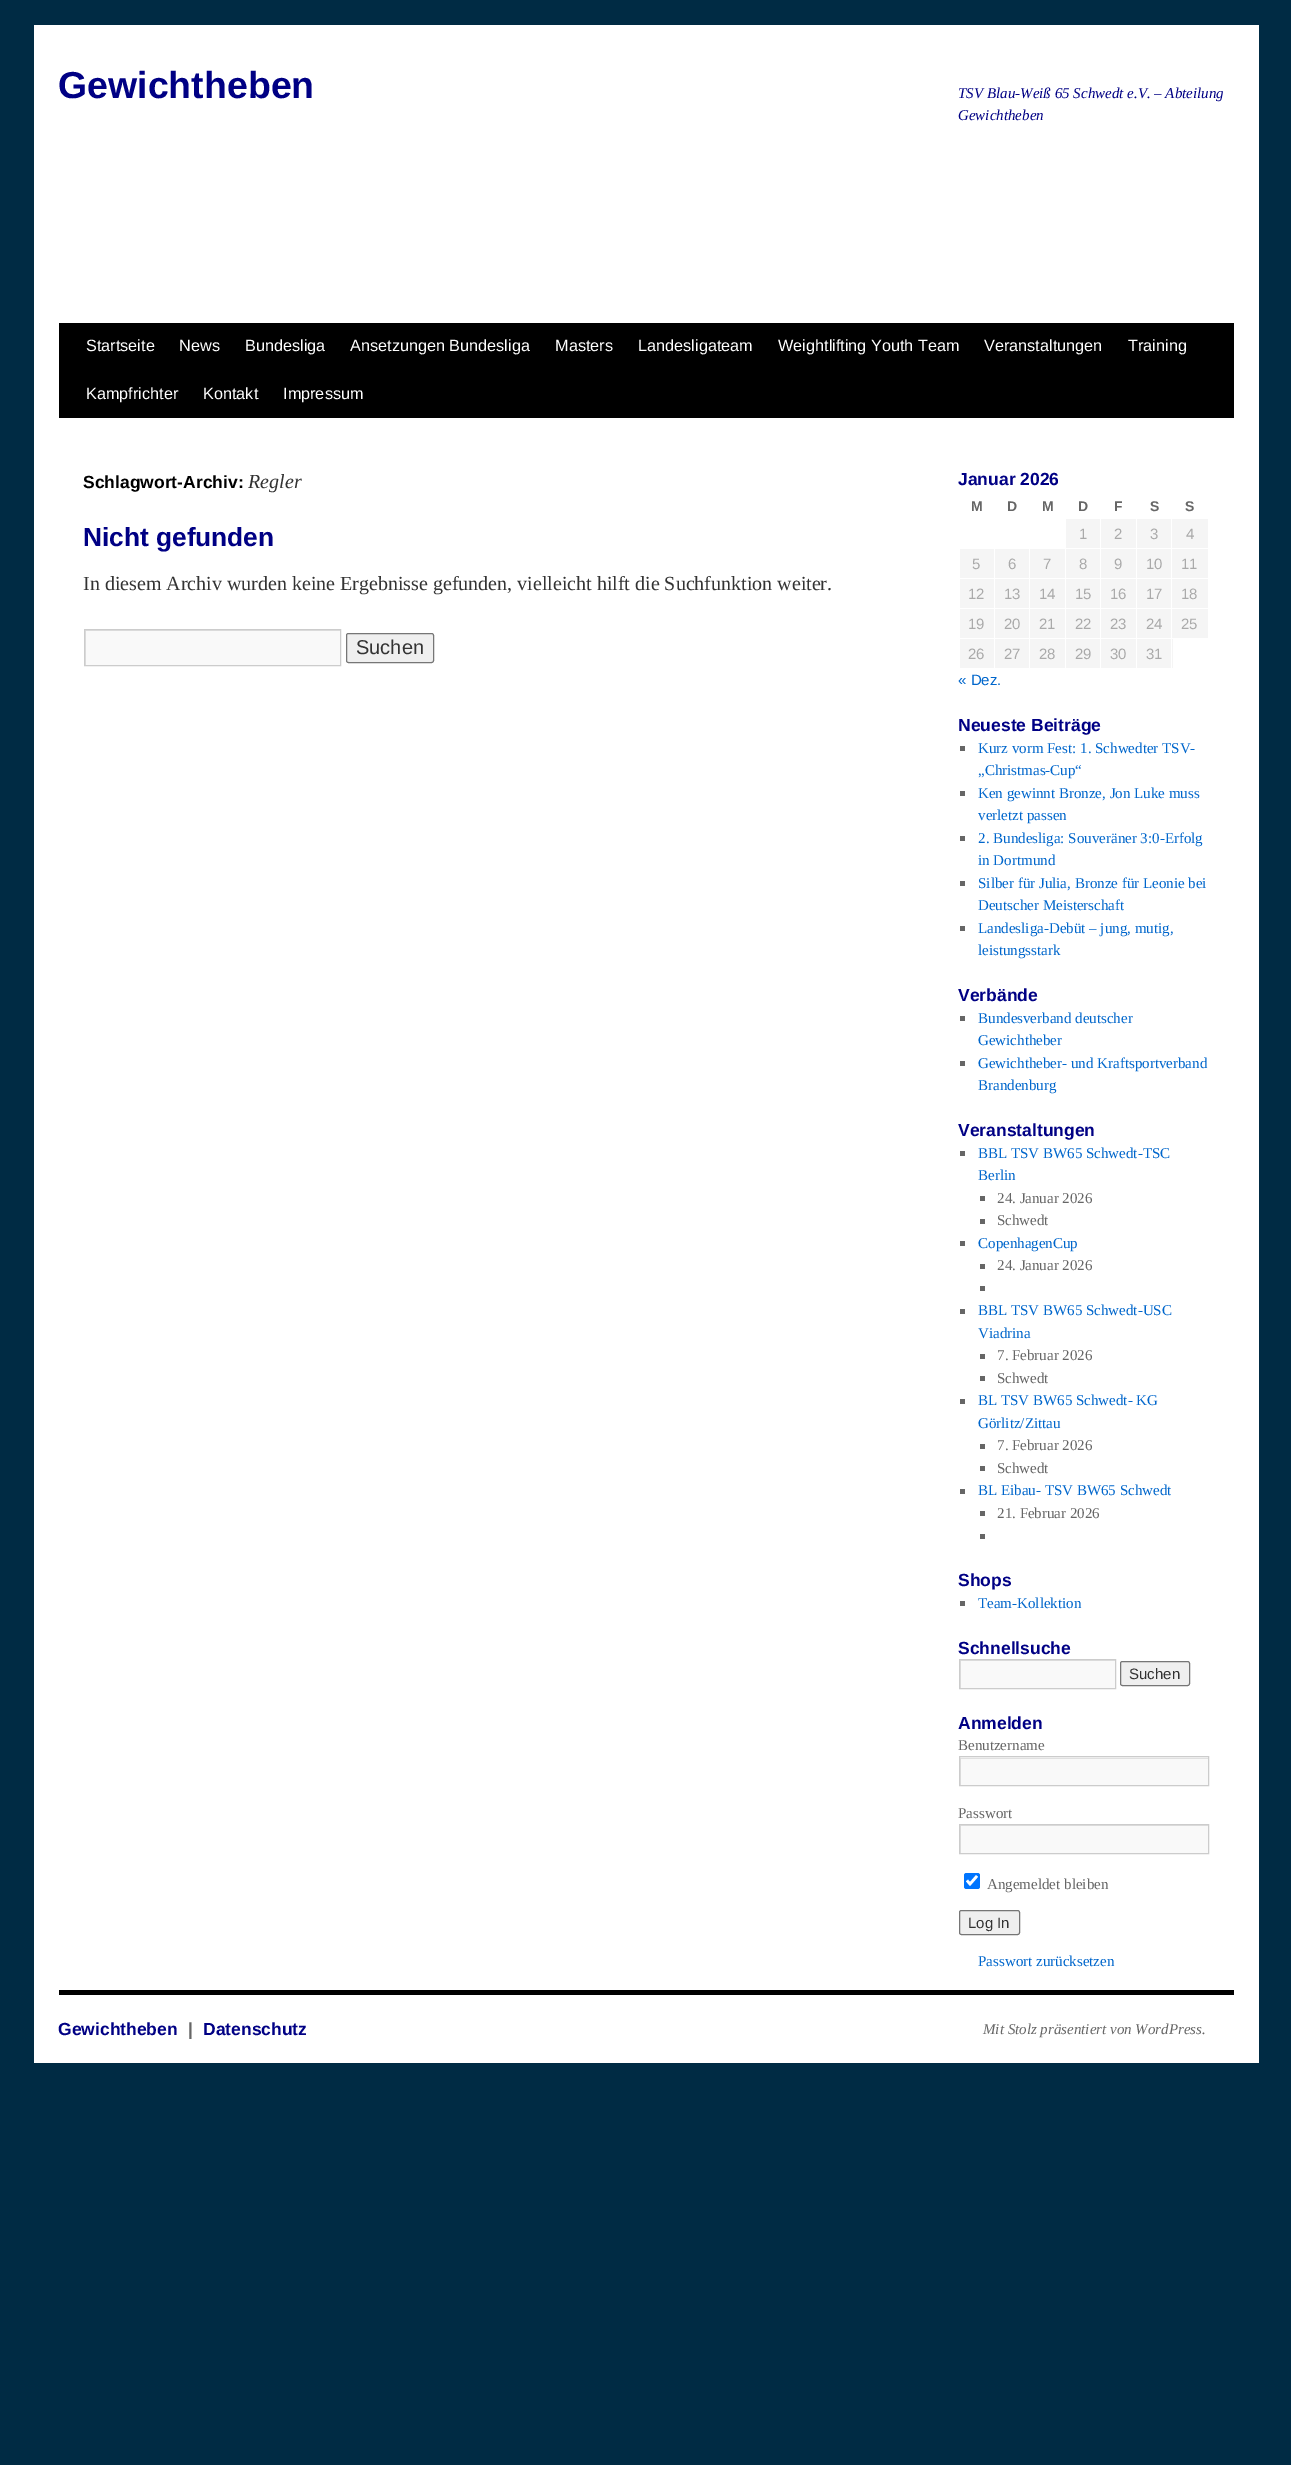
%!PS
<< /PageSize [1291 2465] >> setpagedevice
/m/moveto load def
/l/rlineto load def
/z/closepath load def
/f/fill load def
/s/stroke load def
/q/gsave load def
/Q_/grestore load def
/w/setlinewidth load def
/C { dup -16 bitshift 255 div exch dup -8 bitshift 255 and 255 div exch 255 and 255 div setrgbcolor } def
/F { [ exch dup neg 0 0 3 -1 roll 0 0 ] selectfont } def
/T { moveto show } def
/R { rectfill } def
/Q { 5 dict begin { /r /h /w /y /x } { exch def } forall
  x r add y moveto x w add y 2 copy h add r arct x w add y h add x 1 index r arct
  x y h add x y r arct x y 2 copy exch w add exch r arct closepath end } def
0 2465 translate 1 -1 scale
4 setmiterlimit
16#002B44 C
0 0 1291 2465 R
16#FFFFFF C
34 25 1225 2038 R
/LiberationSans-Bold 37.5 F
16#000084 C
(Gewichtheben) 58 98 T
/LiberationSerif-Italic 15 F
(TSV Blau-Weiß 65 Schwedt e.V. – Abteilung) 958 98 T
(Gewichtheben) 958 120 T
16#000000 C
59 323 1175 95 R
/LiberationSans-Regular 16.25 F
16#FFFFFF C
(Startseite) 86 351 T
(News) 179 351 T
(Bundesliga) 245 351 T
(Ansetzungen Bundesliga) 350 351 T
(Masters) 555 351 T
(Landesligateam) 638 351 T
(Weightlifting Youth Team) 778 351 T
(Veranstaltungen) 984 351 T
(Training) 1128 351 T
(Kampfrichter) 86 399 T
(Kontakt) 203 399 T
(Impressum) 283 399 T
/LiberationSans-Bold 17.5 F
16#000000 C
(Schlagwort-Archiv:) 83 488 T
/LiberationSerif-Italic 20 F
16#333333 C
(Regler) 248 488 T
/LiberationSans-Bold 26.25 F
16#000084 C
(Nicht gefunden) 83 546 T
/LiberationSerif-Regular 20 F
16#333333 C
(In diesem Archiv wurden keine Ergebnisse gefunden, vielleicht hilft die Suchfunktion weiter.) 83 590 T
16#F9F9F9 C
86 631 254 34 R
q
85 630 255 35 rectclip
16#E0E0E0 C
-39 506 m 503 0 l 0 283 l -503 0 l z 86 631 m 255 0 l 0 35 l -255 0 l z eofill
Q_
16#CCCCCC C
84.5 629.5 256 36 rectstroke
16#EFEFEF C
346.5 633.5 87 29 2 Q q f Q_
16#767676 C
s
/LiberationSans-Regular 20 F
16#333333 C
(Suchen) 356 654 T
/LiberationSans-Bold 17.5 F
16#000084 C
(Januar 2026) 958 485 T
/LiberationSans-Bold 14 F
16#666666 C
(M) 971 511 T
(D) 1007 511 T
(M) 1042 511 T
(D) 1078 511 T
(F) 1114 511 T
(S) 1150 511 T
(S) 1185 511 T
16#F5F5F5 C
1066 519 34 29 R
/LiberationSans-Regular 15 F
16#AAAAAA C
(1) 1079 539 T
16#F5F5F5 C
1101 519 35 29 R
16#AAAAAA C
(2) 1114 539 T
16#F5F5F5 C
1137 519 71 29 R
16#AAAAAA C
(3) 1150 539 T
(4) 1186 539 T
16#F5F5F5 C
960 549 34 29 R
16#AAAAAA C
(5) 972 569 T
16#F5F5F5 C
995 549 34 29 R
16#AAAAAA C
(6) 1008 569 T
16#F5F5F5 C
1030 549 35 29 R
16#AAAAAA C
(7) 1043 569 T
16#F5F5F5 C
1066 549 34 29 R
16#AAAAAA C
(8) 1079 569 T
16#F5F5F5 C
1101 549 35 29 R
16#AAAAAA C
(9) 1114 569 T
16#F5F5F5 C
1137 549 71 29 R
16#AAAAAA C
(10) 1146 569 T
(11) 1181 569 T
16#F5F5F5 C
960 579 34 29 R
16#AAAAAA C
(12) 968 599 T
16#F5F5F5 C
995 579 34 29 R
16#AAAAAA C
(13) 1004 599 T
16#F5F5F5 C
1030 579 35 29 R
16#AAAAAA C
(14) 1039 599 T
16#F5F5F5 C
1066 579 34 29 R
16#AAAAAA C
(15) 1075 599 T
16#F5F5F5 C
1101 579 35 29 R
16#AAAAAA C
(16) 1110 599 T
16#F5F5F5 C
1137 579 71 29 R
16#AAAAAA C
(17) 1146 599 T
(18) 1181 599 T
16#F5F5F5 C
960 609 34 29 R
16#AAAAAA C
(19) 968 629 T
16#F5F5F5 C
995 609 34 29 R
16#AAAAAA C
(20) 1004 629 T
16#F5F5F5 C
1030 609 35 29 R
16#AAAAAA C
(21) 1039 629 T
16#F5F5F5 C
1066 609 34 29 R
16#AAAAAA C
(22) 1075 629 T
16#F5F5F5 C
1101 609 35 29 R
16#AAAAAA C
(23) 1110 629 T
16#F5F5F5 C
1137 609 71 29 R
16#AAAAAA C
(24) 1146 629 T
(25) 1181 629 T
16#F5F5F5 C
960 639 34 29 R
16#AAAAAA C
(26) 968 659 T
16#F5F5F5 C
995 639 34 29 R
16#AAAAAA C
(27) 1004 659 T
16#F5F5F5 C
1030 639 35 29 R
16#AAAAAA C
(28) 1039 659 T
16#F5F5F5 C
1066 639 34 29 R
16#AAAAAA C
(29) 1075 659 T
16#F5F5F5 C
1101 639 35 29 R
16#AAAAAA C
(30) 1110 659 T
16#F5F5F5 C
1137 639 36 29 R
16#AAAAAA C
(31) 1146 659 T
16#FFFFFF C
1171 518 1 151 R
16#0066CC C
(« Dez.) 958 685 T
/LiberationSans-Bold 17.5 F
16#000084 C
(Neueste Beiträge) 958 731 T
16#666666 C
960 746 5 5 R
/LiberationSerif-Regular 15 F
16#0066CC C
(Kurz vorm Fest: 1. Schwedter TSV-) 978 753 T
(„Christmas-Cup“) 978 775 T
16#666666 C
960 791 5 5 R
16#0066CC C
(Ken gewinnt Bronze, Jon Luke muss) 978 798 T
(verletzt passen) 978 820 T
16#666666 C
960 836 5 5 R
16#0066CC C
(2. Bundesliga: Souveräner 3:0-Erfolg) 978 843 T
(in Dortmund) 978 865 T
16#666666 C
960 881 5 5 R
16#0066CC C
(Silber für Julia, Bronze für Leonie bei) 978 888 T
(Deutscher Meisterschaft) 978 910 T
16#666666 C
960 926 5 5 R
16#0066CC C
(Landesliga-Debüt – jung, mutig,) 978 933 T
(leistungsstark) 978 955 T
/LiberationSans-Bold 17.5 F
16#000084 C
(Verbände) 958 1001 T
16#666666 C
960 1016 5 5 R
/LiberationSerif-Regular 15 F
16#0066CC C
(Bundesverband deutscher) 978 1023 T
(Gewichtheber) 978 1045 T
16#666666 C
960 1061 5 5 R
16#0066CC C
(Gewichtheber- und Kraftsportverband) 978 1068 T
(Brandenburg) 978 1090 T
/LiberationSans-Bold 17.5 F
16#000084 C
(Veranstaltungen) 958 1136 T
16#666666 C
960 1151 5 5 R
/LiberationSerif-Regular 15 F
16#0066CC C
(BBL TSV BW65 Schwedt-TSC) 978 1158 T
(Berlin) 978 1180 T
16#666666 C
980 1196 5 5 R
(24. Januar 2026) 997 1203 T
980 1219 5 5 R
(Schwedt) 997 1225 T
960 1241 5 5 R
16#0066CC C
(CopenhagenCup) 978 1248 T
16#666666 C
980 1264 5 5 R
(24. Januar 2026) 997 1270 T
980 1286 5 5 R
960 1309 5 5 R
16#0066CC C
(BBL TSV BW65 Schwedt-USC) 978 1315 T
(Viadrina) 978 1338 T
16#666666 C
980 1354 5 5 R
(7. Februar 2026) 997 1360 T
980 1376 5 5 R
(Schwedt) 997 1383 T
960 1399 5 5 R
16#0066CC C
(BL TSV BW65 Schwedt- KG) 978 1405 T
(Görlitz/Zittau) 978 1428 T
16#666666 C
980 1444 5 5 R
(7. Februar 2026) 997 1450 T
980 1466 5 5 R
(Schwedt) 997 1473 T
960 1489 5 5 R
16#0066CC C
(BL Eibau- TSV BW65 Schwedt) 978 1495 T
16#666666 C
980 1511 5 5 R
(21. Februar 2026) 997 1518 T
980 1534 5 5 R
/LiberationSans-Bold 17.5 F
16#000084 C
(Shops) 958 1586 T
16#666666 C
960 1601 5 5 R
/LiberationSerif-Regular 15 F
16#0066CC C
(Team-Kollektion) 978 1608 T
/LiberationSans-Bold 17.5 F
16#000084 C
(Schnellsuche) 958 1654 T
16#F9F9F9 C
961 1661 154 27 R
q
960 1660 155 28 rectclip
16#E0E0E0 C
836 1536 m 403 0 l 0 275 l -403 0 l z 961 1661 m 155 0 l 0 28 l -155 0 l z eofill
Q_
16#CCCCCC C
959.5 1659.5 156 29 rectstroke
16#EFEFEF C
1120.5 1661.5 69 24 2 Q q f Q_
16#767676 C
s
/LiberationSans-Regular 15 F
16#333333 C
(Suchen) 1129 1679 T
/LiberationSans-Bold 17.5 F
16#000084 C
(Anmelden) 958 1729 T
/LiberationSerif-Regular 15 F
16#666666 C
(Benutzername) 958 1750 T
16#F9F9F9 C
960 1757 248 28 R
q
960 1758 248 27 rectclip
16#E0E0E0 C
836 1634 m 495 0 l 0 275 l -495 0 l z 961 1759 m 248 0 l 0 27 l -248 0 l z eofill
Q_
16#CCCCCC C
959.5 1756.5 249 29 rectstroke
16#666666 C
(Passwort) 958 1818 T
16#F9F9F9 C
961 1826 247 27 R
q
960 1825 248 28 rectclip
16#E0E0E0 C
836 1701 m 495 0 l 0 275 l -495 0 l z 961 1826 m 248 0 l 0 28 l -248 0 l z eofill
Q_
16#CCCCCC C
959.5 1824.5 249 29 rectstroke
16#0075FF C
964 1873 16 16 2.5 Q f
16#FFFFFF C
2.6 w
967 1880.5 m 3 3.5 l 7 -8 l s
16#666666 C
(Angemeldet bleiben) 987 1889 T
16#EFEFEF C
959.5 1910.5 60 24 2 Q q f Q_
16#767676 C
1 w
s
/LiberationSans-Regular 15 F
16#333333 C
(Log In) 968 1928 T
/LiberationSerif-Regular 15 F
16#0066CC C
(Passwort zurücksetzen) 978 1966 T
16#000000 C
59 1990 1175 5 R
/LiberationSans-Bold 17.5 F
16#000084 C
(Gewichtheben) 58 2035 T
16#666666 C
(|) 188 2035 T
16#000084 C
(Datenschutz) 203 2035 T
/LiberationSerif-Italic 15 F
16#666666 C
(Mit Stolz präsentiert von WordPress.) 983 2034 T
showpage
